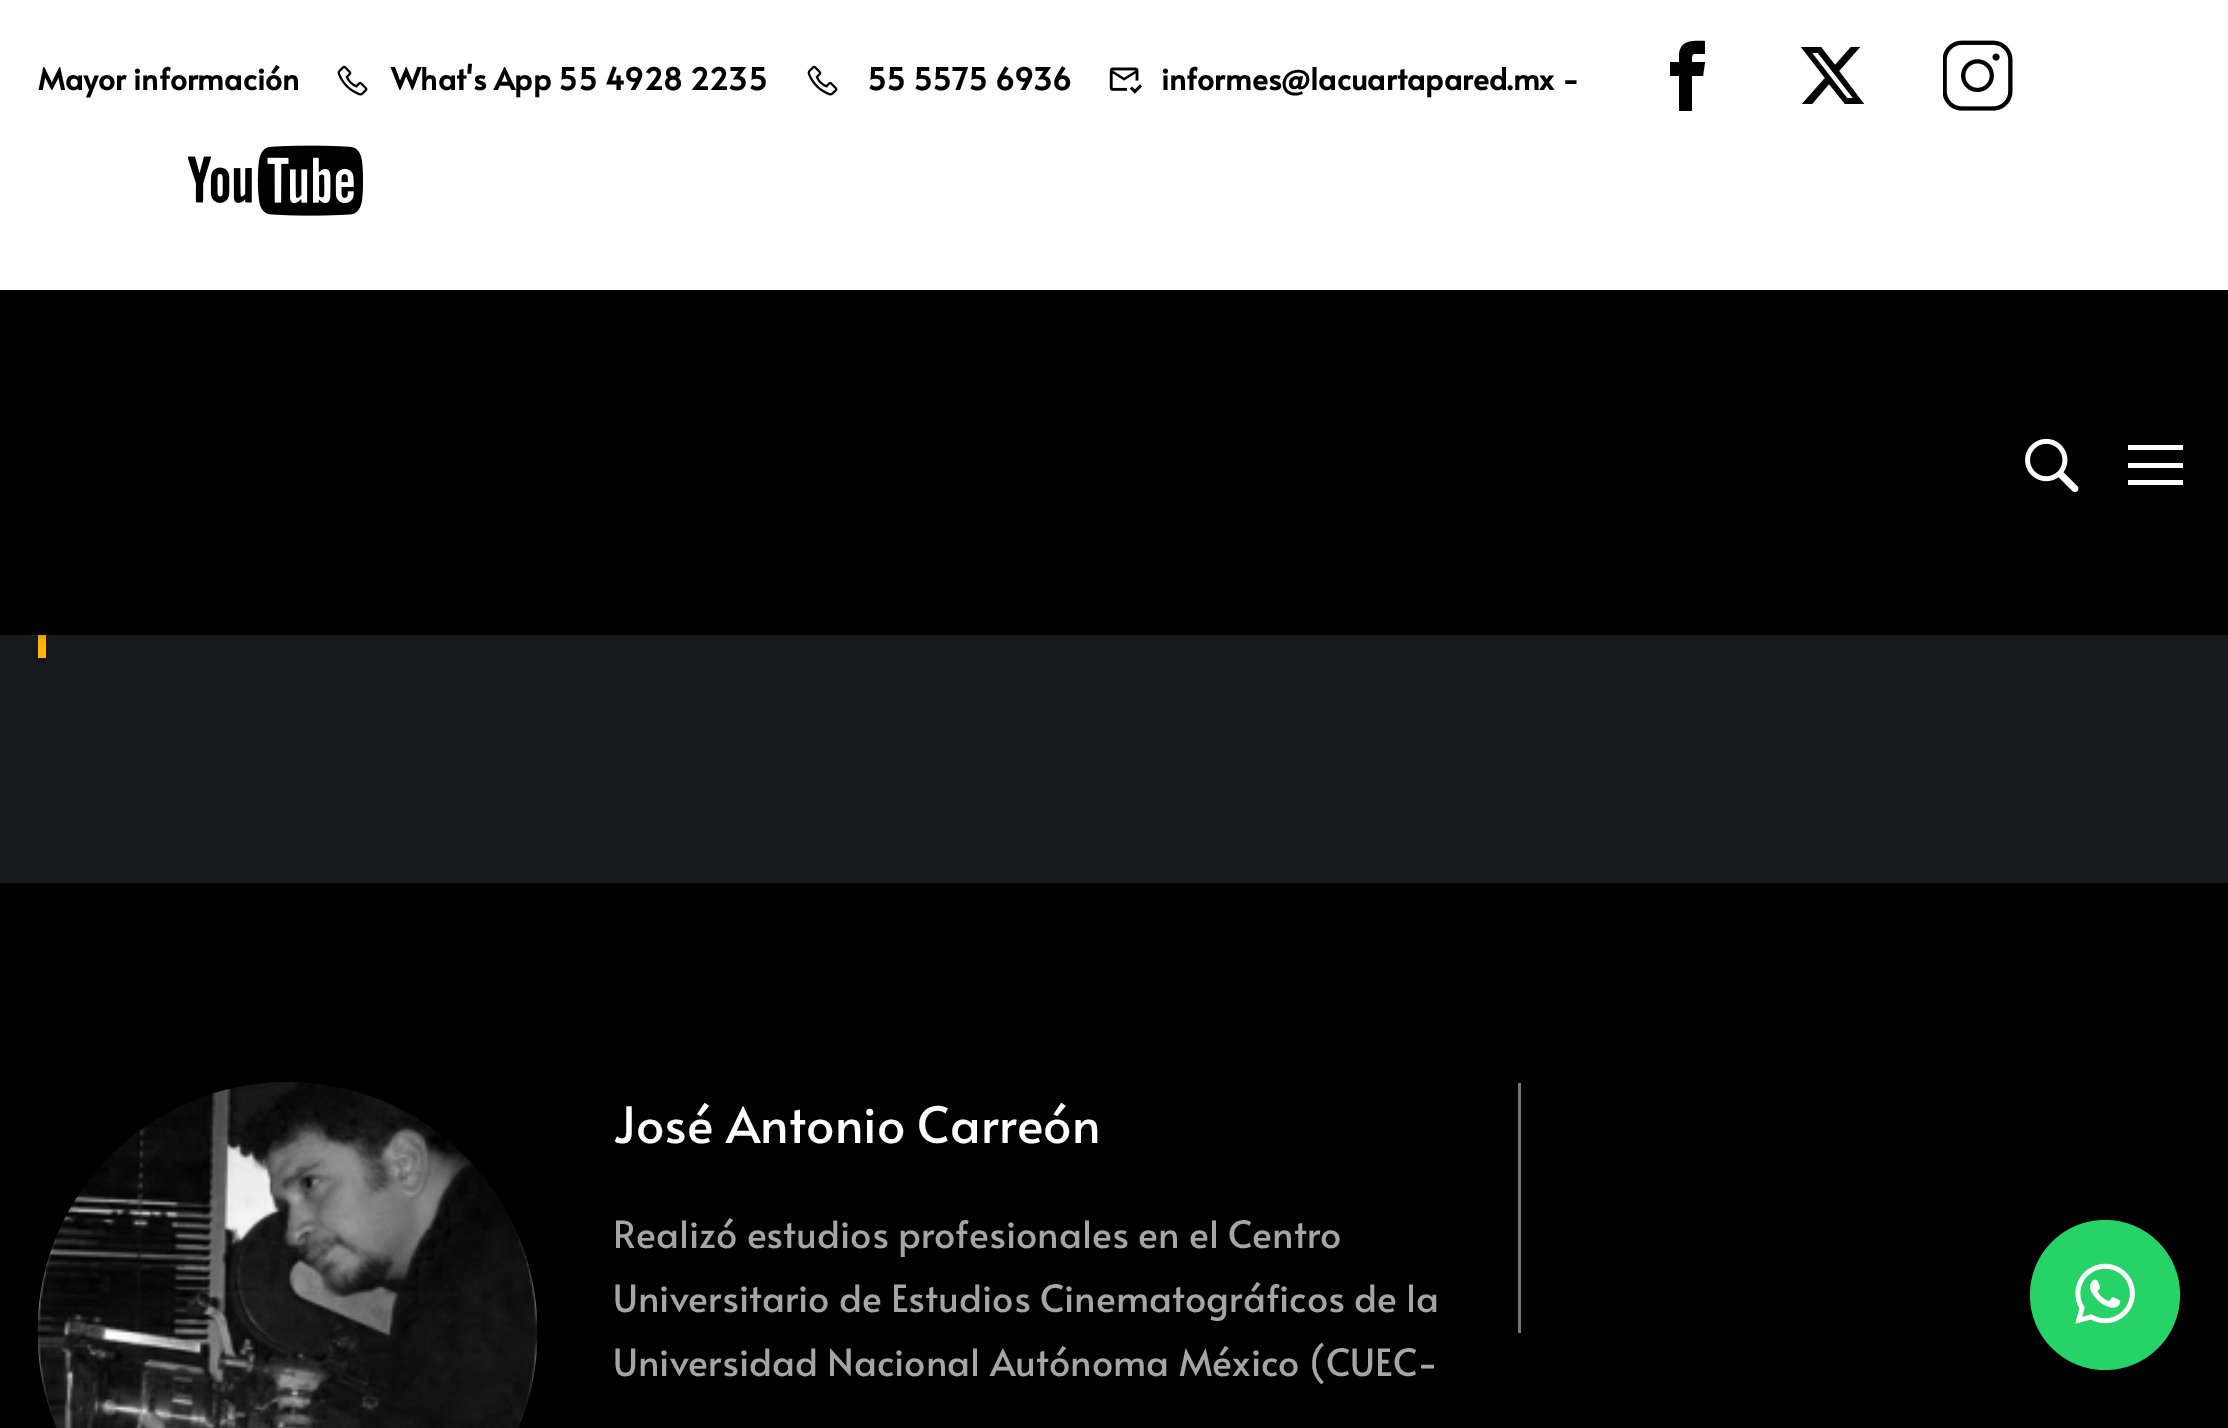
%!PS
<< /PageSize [2228 1428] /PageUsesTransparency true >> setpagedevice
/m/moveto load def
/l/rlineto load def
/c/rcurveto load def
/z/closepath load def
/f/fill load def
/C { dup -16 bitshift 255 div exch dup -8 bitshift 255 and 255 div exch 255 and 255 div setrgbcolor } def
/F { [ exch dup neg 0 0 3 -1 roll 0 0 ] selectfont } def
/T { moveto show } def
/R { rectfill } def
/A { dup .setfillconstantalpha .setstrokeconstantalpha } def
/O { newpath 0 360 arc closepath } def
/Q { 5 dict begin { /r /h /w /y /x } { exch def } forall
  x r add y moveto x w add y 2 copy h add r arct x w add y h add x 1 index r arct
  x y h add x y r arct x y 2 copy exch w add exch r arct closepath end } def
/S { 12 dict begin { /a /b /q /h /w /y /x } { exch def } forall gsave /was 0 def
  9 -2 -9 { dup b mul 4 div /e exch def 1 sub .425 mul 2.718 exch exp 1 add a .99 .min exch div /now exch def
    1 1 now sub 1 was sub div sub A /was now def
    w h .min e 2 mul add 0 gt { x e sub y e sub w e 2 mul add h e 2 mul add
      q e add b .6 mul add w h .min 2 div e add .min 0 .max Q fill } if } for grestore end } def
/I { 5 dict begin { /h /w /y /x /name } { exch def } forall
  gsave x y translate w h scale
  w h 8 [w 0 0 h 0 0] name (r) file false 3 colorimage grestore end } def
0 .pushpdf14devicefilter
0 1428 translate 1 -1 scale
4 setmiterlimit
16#000000 C
0 0 2228 1428 R
16#16181C C
0 635 2228 248 R
16#FFB606 C
38 635 8 23 R
16#2A2A2A C
5 8 2220 625 0 6 .4 S
16#000000 C
0 290 2228 345 R
16#FFFFFF C
0 0 2228 290 R
16#000000 C
1694 54 m 11 0 l 0 -13 l -11 0 -24 -2 -26 13 c 0 8 l -9 0 l 0 14 l 9 0 l 0 35 l 13 0 l 0 -35 l 11 0 l 2 -14 l -13 0 l 0 -1 -1 -8 2 -8 c z f
1851 47 m 9 0 l -21 24 l 25 33 l -19 0 l -16 -20 l -17 20 l -10 0 l 23 -26 l -24 -31 l 20 0 l 14 18 l z 1847 98 m 6 0 l -35 -45 l -6 0 l z f
(1.rgb) 1943 40 70 71 I
(2.rgb) 188 145 175 71 I
/Alata-Bold 30 F
(Mayor información) 38 90 T
(3.rgb) 337 65 31 31 I
(What's App 55 4928 2235) 391 90 T
(3.rgb) 807 65 31 31 I
(55 5575 6936) 867 90 T
(4.rgb) 1109 67 33 27 I
(informes@lacuartapared.mx -) 1161 90 T
(5.rgb) 2025 438 54 55 I
16#FFFFFF C
2128 445 55 5 R
2128 463 55 5 R
2128 480 55 5 R
(6.rgb) 37 1082 501 346 I
/Alata-Regular 50 F
(José Antonio Carreón) 613 1143 T
/Alata-Regular 37.5 F
16#A6A5A5 C
(Realizó estudios profesionales en el Centro) 613 1248 T
(Universitario de Estudios Cinematográficos de la) 613 1312 T
(Universidad Nacional Autónoma México \(CUEC-) 613 1376 T
16#757575 C
1518 1083 3 250 R
16#25D366 C
2105 1295 75 O f
(7.rgb) 2075 1263 60 61 I
.poppdf14devicefilter showpage
